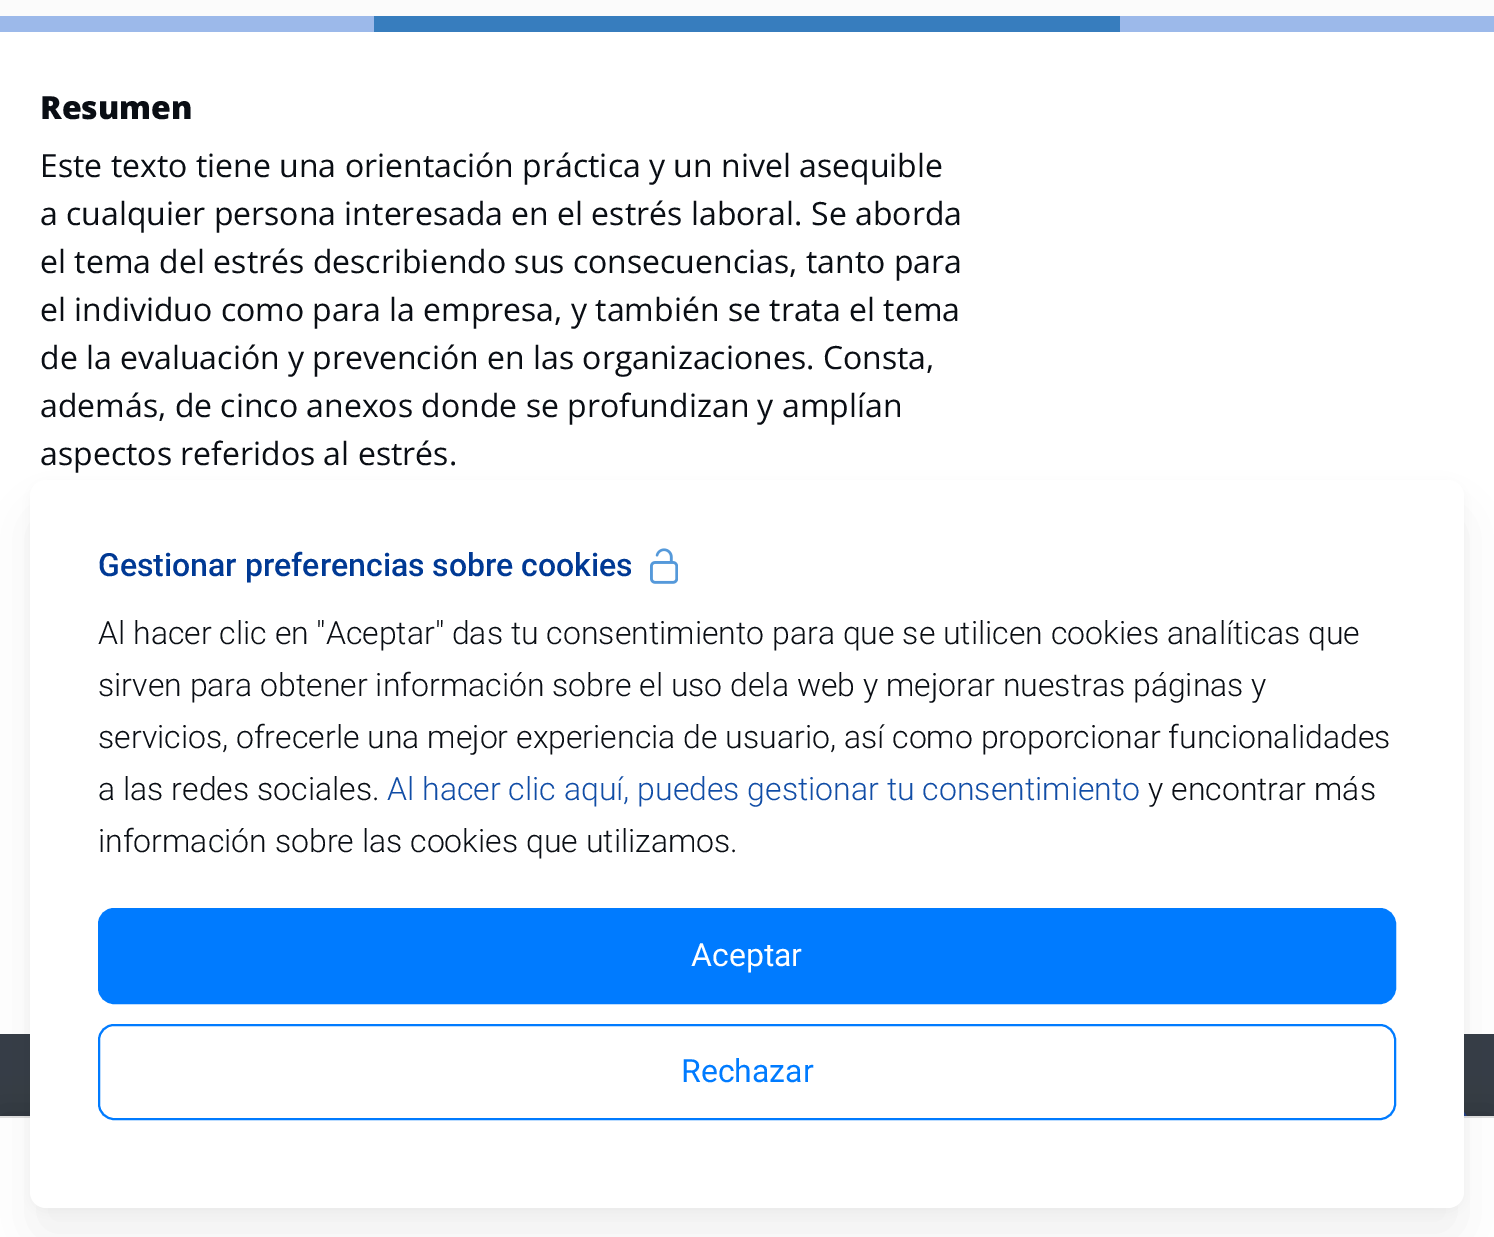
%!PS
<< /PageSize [1494 1237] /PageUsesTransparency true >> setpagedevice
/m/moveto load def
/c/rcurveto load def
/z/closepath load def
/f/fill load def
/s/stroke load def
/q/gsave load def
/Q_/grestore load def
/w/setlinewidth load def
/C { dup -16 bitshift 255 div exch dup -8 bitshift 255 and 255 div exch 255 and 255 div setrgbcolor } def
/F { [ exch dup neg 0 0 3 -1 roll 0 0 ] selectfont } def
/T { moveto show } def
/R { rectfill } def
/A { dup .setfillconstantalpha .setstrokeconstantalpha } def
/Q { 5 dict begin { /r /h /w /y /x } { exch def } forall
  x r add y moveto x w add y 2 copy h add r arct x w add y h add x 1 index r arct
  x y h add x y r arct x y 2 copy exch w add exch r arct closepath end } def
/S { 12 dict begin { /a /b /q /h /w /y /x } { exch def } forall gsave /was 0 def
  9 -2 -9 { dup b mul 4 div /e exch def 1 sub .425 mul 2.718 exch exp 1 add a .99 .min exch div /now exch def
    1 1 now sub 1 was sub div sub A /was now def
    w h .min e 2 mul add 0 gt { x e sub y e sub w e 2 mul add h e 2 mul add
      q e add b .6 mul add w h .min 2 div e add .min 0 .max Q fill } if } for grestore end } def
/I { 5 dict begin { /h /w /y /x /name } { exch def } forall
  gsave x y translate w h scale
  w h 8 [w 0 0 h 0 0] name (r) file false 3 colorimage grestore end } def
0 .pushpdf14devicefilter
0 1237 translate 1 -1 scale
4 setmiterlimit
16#FFFFFF C
0 0 1494 1237 R
16#FBFBFB C
0 0 1494 16 R
16#9CB9EA C
1120 16 374 16 R
16#377DBE C
374 16 746 16 R
16#9CB9EA C
0 16 374 16 R
/OpenSans-ExtraBold 32 F
16#0A0E14 C
(Resumen) 40 119 T
/OpenSans-Regular 32 F
(Este texto tiene una orientación práctica y un nivel asequible) 40 177 T
(a cualquier persona interesada en el estrés laboral. Se aborda) 40 225 T
(el tema del estrés describiendo sus consecuencias, tanto para) 40 273 T
(el individuo como para la empresa, y también se trata el tema) 40 321 T
(de la evaluación y prevención en las organizaciones. Consta,) 40 369 T
(además, de cinco anexos donde se profundizan y amplían) 40 417 T
(aspectos referidos al estrés.) 40 465 T
16#363D47 C
0 1034 1494 82 R
16#244898 C
2 w
1429 1093 m 24.5 0 44 23.5 44 52 c 0 28.5 -19.5 52 -44 52 c -24.5 0 -44 -23.5 -44 -52 c 0 -28.5 19.5 -52 44 -52 c z s
16#000000 C
0 1116 1494 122 0 18 .2 S
16#FFFFFF C
0 1118 1494 119 R
16#E0E0E0 C
0 1116 1494 2 R
16#000000 C
30 484 1434 728 16 6 .04 S
30 512 1434 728 16 24 .06 S
16#FFFFFF C
30 480 1434 728 16 Q f
/Roboto-Medium 32 F
16#003994 C
(Gestionar preferencias sobre cookies) 98 576 T
(1.rgb) 650 548 28 36 I
/Roboto-Light 32 F
16#0A0E14 C
(Al hacer clic en "Aceptar" das tu consentimiento para que se utilicen cookies analíticas que) 98 644 T
(sirven para obtener información sobre el uso dela web y mejorar nuestras páginas y) 98 696 T
(servicios, ofrecerle una mejor experiencia de usuario, así como proporcionar funcionalidades) 98 748 T
(a las redes sociales.) 98 800 T
16#114DA6 C
(Al hacer clic aquí, puedes gestionar tu consentimiento) 387 800 T
16#0A0E14 C
(y encontrar más) 1148 800 T
(información sobre las cookies que utilizamos.) 98 852 T
16#007BFF C
99 909 1296 94 15 Q q f Q_
s
/Roboto-Regular 32 F
16#FFFFFF C
(Aceptar) 691 966 T
16#007BFF C
99 1025 1296 94 15 Q s
(Rechazar) 681 1082 T
.poppdf14devicefilter showpage
